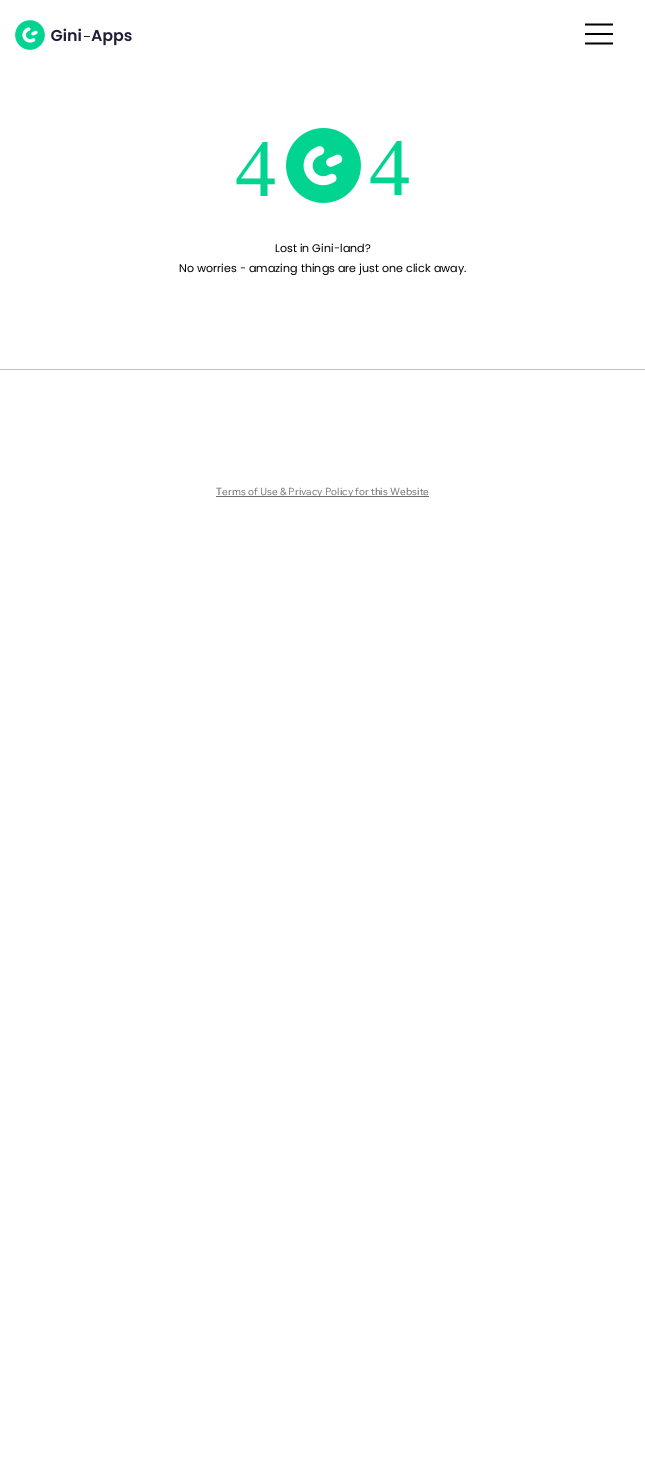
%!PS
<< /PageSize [645 1478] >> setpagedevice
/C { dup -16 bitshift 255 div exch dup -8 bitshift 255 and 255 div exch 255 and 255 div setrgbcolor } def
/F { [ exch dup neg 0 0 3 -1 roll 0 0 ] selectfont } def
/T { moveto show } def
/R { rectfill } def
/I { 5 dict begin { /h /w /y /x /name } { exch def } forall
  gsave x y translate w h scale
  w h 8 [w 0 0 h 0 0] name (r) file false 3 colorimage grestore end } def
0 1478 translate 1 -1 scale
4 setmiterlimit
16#FFFFFF C
0 0 645 1478 R
(1.rgb) 15 20 117 30 I
(2.rgb) 585 23 28 22 I
/LiberationSerif-Regular 82 F
16#01D491 C
(4) 235 196 T
(3.rgb) 286 128 75 75 I
(4) 369 195 T
/Poppins-Regular 11.1 F
16#000000 C
(Lost in Gini-land?) 275 252 T
(No worries - amazing things are just one click away.) 179 272 T
16#C2C2C2 C
0 369 645 1 R
16#6E6E6E C
216 496 213 1 R
/WixMadeforText-Regular 10 F
(Terms of Use & Privacy Policy for this Website) 216 495 T
showpage
